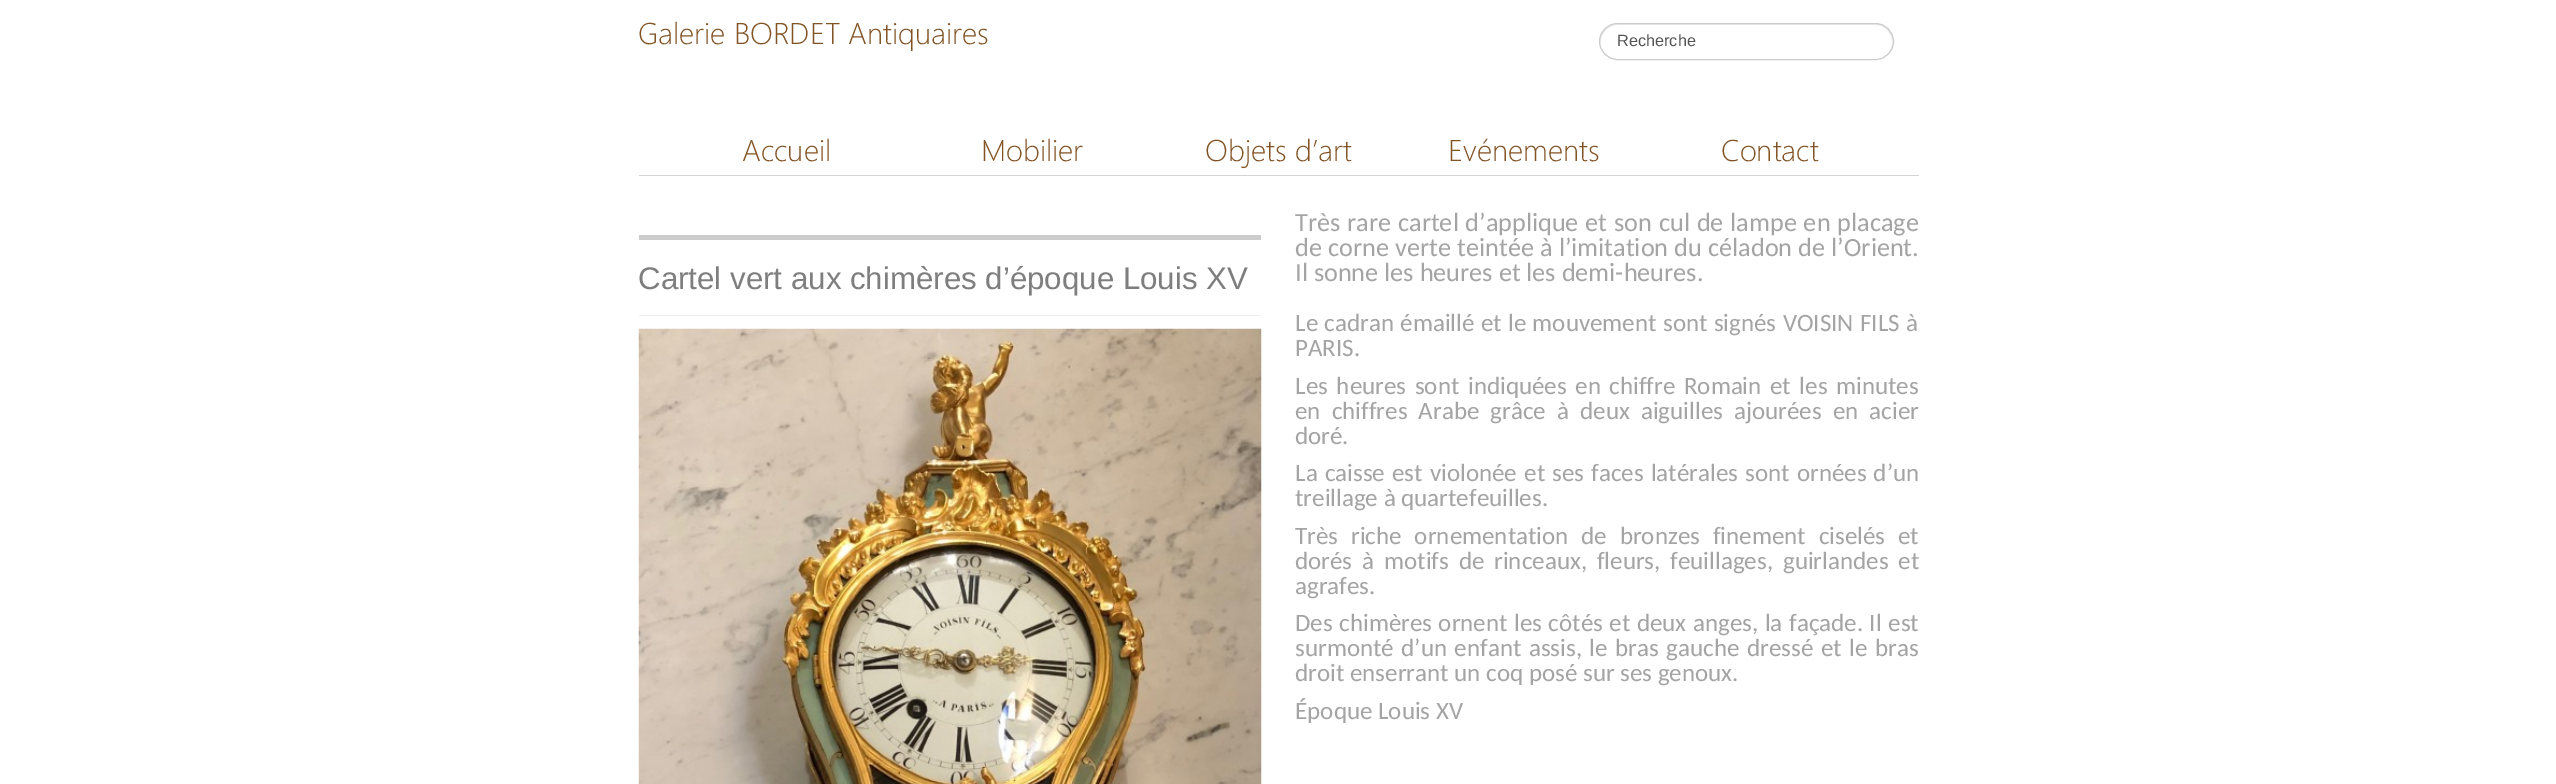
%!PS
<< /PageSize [2556 784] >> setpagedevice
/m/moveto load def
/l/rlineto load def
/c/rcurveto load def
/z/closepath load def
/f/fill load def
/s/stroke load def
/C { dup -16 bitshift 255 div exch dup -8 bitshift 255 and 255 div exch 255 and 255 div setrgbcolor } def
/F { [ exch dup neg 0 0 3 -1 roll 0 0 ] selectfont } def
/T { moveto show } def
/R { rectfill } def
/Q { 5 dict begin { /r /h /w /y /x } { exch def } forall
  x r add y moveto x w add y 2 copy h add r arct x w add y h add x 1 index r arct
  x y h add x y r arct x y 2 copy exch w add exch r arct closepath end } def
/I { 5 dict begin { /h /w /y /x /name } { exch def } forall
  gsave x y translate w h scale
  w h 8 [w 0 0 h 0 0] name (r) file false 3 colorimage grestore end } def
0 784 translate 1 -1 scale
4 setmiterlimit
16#FFFFFF C
0 0 2556 784 R
/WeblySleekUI-Light 30 F
16#825324 C
(Galerie BORDET Antiquaires) 638 44 T
16#ECECEC C
1618 25 m 257 0 l 7 1 l 9 5 13 16 8 25 c 2 -3 3 -6 3 -9 c 0 -10 -8 -18 -17 -18 c -258 0 l -10 0 -18 8 -18 18 c 1 5 l -2 -10 4 -22 17 -22 c z f
16#CCCCCC C
1599.5 23.5 294 36 18 Q s
/LiberationSans-Regular 16.25 F
16#555555 C
(Recherche) 1617 46 T
16#D4D4D4 C
639 175 1280 1 R
/WeblySleekUI-Light 30 F
16#825324 C
(Accueil) 742 161 T
(Mobilier) 981 161 T
(Objets d’art) 1205 161 T
(Evénements) 1448 161 T
(Contact) 1721 161 T
16#CCCCCC C
639 235 622 5 R
16#EEEEEE C
639 315 622 1 R
/LiberationSans-Regular 31.25 F
16#7E7E7E C
(Cartel vert aux chimères d’époque Louis XV) 638 289 T
(1.rgb) 638 328 624 456 I
/Carlito-Regular 26.25 F
16#A4A4A4 C
1295 231 m .9 0 32 (Très rare cartel d’applique et son cul de lampe en placage) widthshow
1295 256 m .25 0 32 (de corne verte teintée à l’imitation du céladon de l’Orient.) widthshow
(Il sonne les heures et les demi-heures.) 1295 281 T
/Carlito-Regular 25 F
1295 331 m .75 0 32 (Le cadran émaillé et le mouvement sont signés VOISIN FILS à) widthshow
(PARIS.) 1295 356 T
1295 394 m 3 0 32 (Les heures sont indiquées en chiffre Romain et les minutes) widthshow
1295 419 m 5.5 0 32 (en chiffres Arabe grâce à deux aiguilles ajourées en acier) widthshow
(doré.) 1295 444 T
1295 481 m 1.5 0 32 (La caisse est violonée et ses faces latérales sont ornées d’un) widthshow
(treillage à quartefeuilles.) 1295 506 T
1295 544 m 7.25 0 32 (Très riche ornementation de bronzes finement ciselés et) widthshow
1295 569 m 4.25 0 32 (dorés à motifs de rinceaux, fleurs, feuillages, guirlandes et) widthshow
(agrafes.) 1295 594 T
1295 631 m .9 0 32 (Des chimères ornent les côtés et deux anges, la façade. Il est) widthshow
1295 656 m 1.9 0 32 (surmonté d’un enfant assis, le bras gauche dressé et le bras) widthshow
(droit enserrant un coq posé sur ses genoux.) 1295 681 T
(Époque Louis XV) 1295 719 T
showpage
